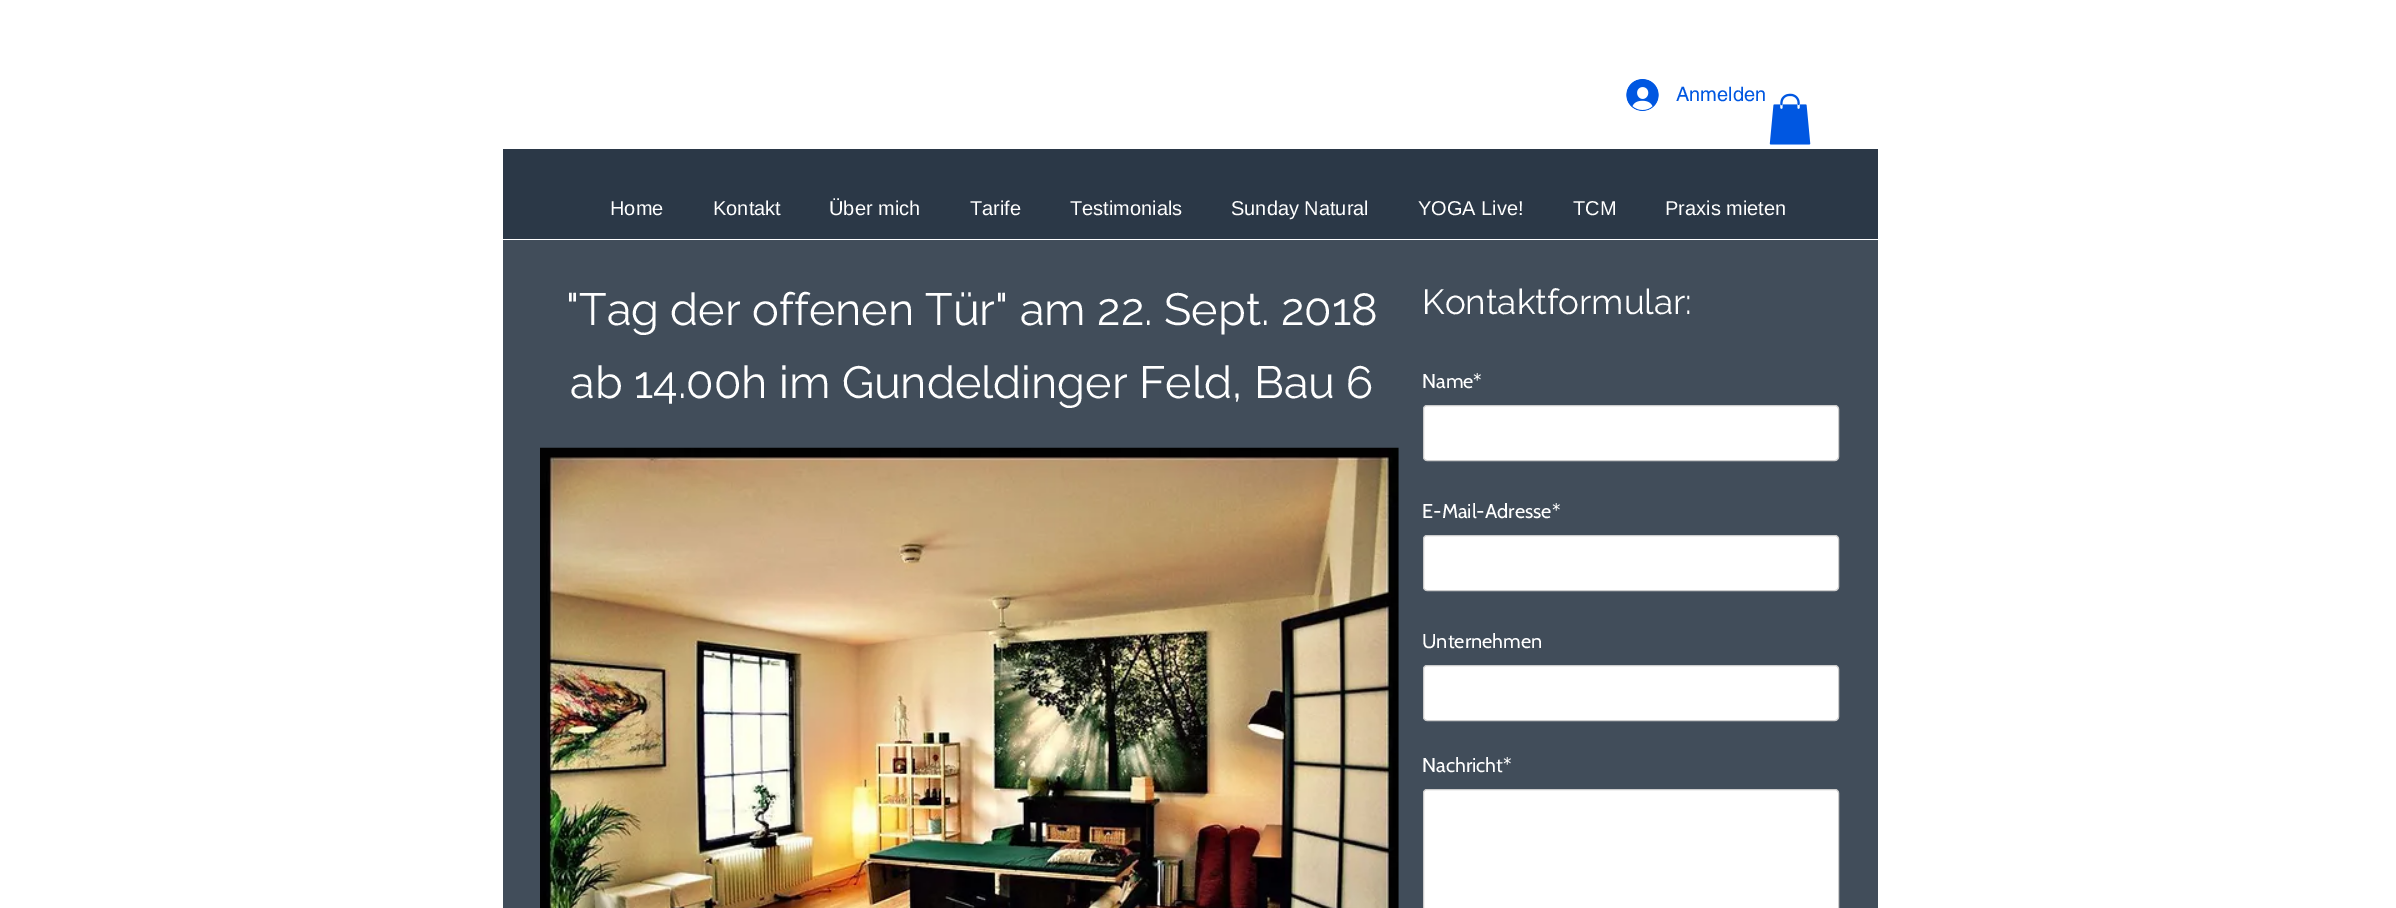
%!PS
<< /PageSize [2396 908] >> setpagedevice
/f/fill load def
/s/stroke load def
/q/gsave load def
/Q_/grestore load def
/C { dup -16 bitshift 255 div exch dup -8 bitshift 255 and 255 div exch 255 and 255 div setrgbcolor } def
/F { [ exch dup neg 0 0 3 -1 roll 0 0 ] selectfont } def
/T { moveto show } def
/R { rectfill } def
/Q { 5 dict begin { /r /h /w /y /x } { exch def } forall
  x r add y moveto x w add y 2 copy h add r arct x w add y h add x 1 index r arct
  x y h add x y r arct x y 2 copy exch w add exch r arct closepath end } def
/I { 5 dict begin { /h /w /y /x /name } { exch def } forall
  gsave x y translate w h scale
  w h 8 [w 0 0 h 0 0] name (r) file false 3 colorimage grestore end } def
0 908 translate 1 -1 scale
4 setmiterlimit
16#FFFFFF C
0 0 2396 908 R
(1.rgb) 1626 79 33 32 I
/helvetica-Regular 20 F
16#0057E1 C
(Anmelden) 1676 101 T
(2.rgb) 1769 93 42 52 I
16#2B3847 C
503 149 1375 90 R
/LiberationSans-Regular 20 F
16#FFFFFF C
(Home) 610 215 T
(Kontakt) 713 215 T
(Über mich) 829 215 T
(Tarife) 970 215 T
(Testimonials) 1070 215 T
(Sunday Natural) 1231 215 T
(YOGA Live!) 1418 215 T
(TCM) 1573 215 T
(Praxis mieten) 1665 215 T
16#414D5A C
503 240 1375 668 R
/Raleway-Regular 45 F
16#FFFFFF C
("Tag der offenen Tür" am 22. Sept. 2018) 566 325 T
(ab 14.00h im Gundeldinger Feld, Bau 6) 570 398 T
(3.rgb) 540 447 859 461 I
/Raleway-Regular 35 F
(Kontaktformular:) 1422 314 T
/Cabin-Regular 20 F
(Name*) 1422 388 T
1423.5 405.5 415 55 3.5 Q q f Q_
16#CCCCCC C
s
16#FFFFFF C
(E-Mail-Adresse*) 1422 518 T
1423.5 535.5 415 55 3.5 Q q f Q_
16#CCCCCC C
s
16#FFFFFF C
(Unternehmen) 1422 648 T
1423.5 665.5 415 55 3.5 Q q f Q_
16#CCCCCC C
s
16#FFFFFF C
(Nachricht*) 1422 772 T
1423.5 789.5 415 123 3.5 Q q f Q_
16#CCCCCC C
s
showpage
